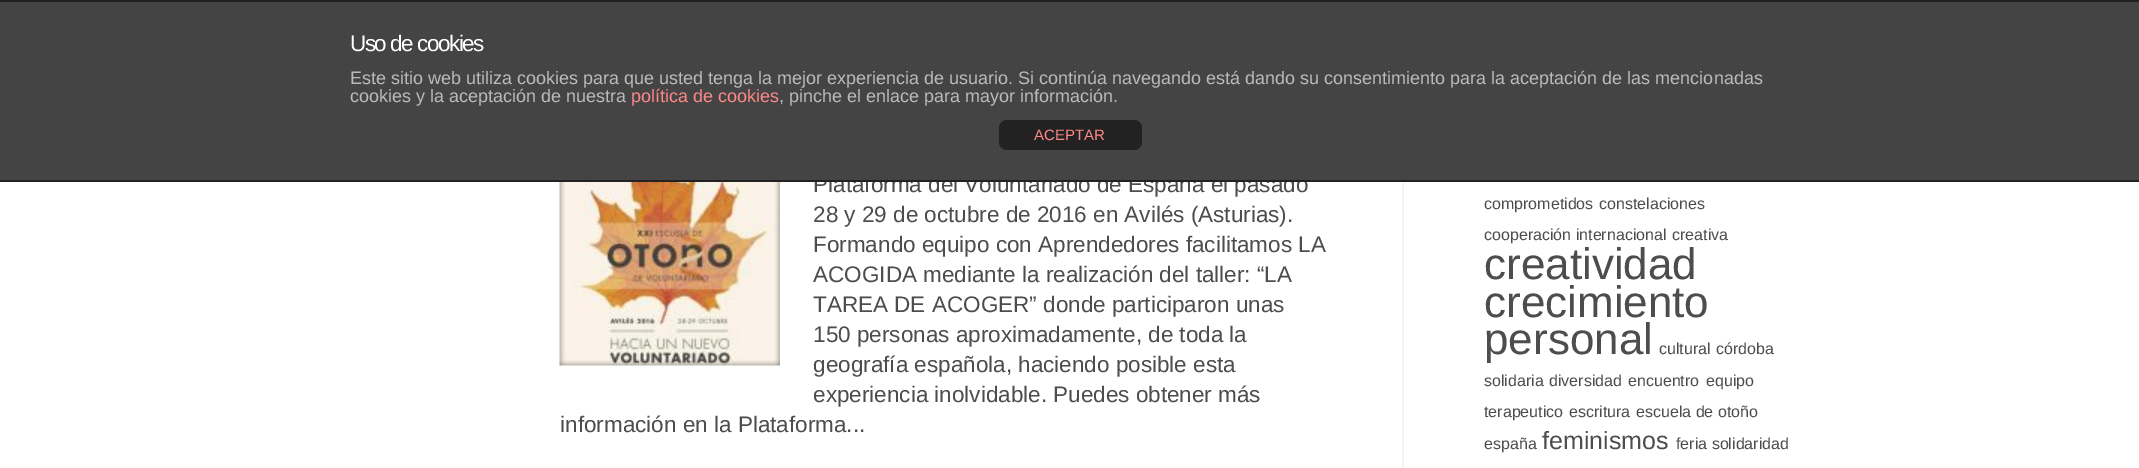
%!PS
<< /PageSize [2139 468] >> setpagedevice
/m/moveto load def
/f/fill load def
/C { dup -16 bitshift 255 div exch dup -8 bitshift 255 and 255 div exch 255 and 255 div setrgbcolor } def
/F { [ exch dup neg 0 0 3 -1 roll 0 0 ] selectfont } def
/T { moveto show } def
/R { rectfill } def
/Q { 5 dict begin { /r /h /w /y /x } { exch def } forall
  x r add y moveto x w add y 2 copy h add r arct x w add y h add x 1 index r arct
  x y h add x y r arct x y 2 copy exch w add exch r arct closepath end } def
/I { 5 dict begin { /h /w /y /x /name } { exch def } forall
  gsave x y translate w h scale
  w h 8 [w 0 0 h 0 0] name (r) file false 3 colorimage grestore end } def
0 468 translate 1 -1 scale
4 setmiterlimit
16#FFFFFF C
0 0 2139 468 R
/LiberationSans-Regular 22.5 F
16#4D4D4D C
(Plataforma del Voluntariado de España el pasado) 813 192 T
16#444444 C
0 2 2139 178 R
16#222222 C
0 0 2139 2 R
0 180 2139 2 R
16#FFFFFF C
350 51 m -1.5 0 (Uso de cookies) ashow
/LiberationSans-Regular 18 F
16#BBBBBB C
(Este sitio web utiliza cookies para que usted tenga la mejor experiencia de usuario. Si continúa navegando está dando su consentimiento para la aceptación de las mencionadas) 350 84 T
(cookies y la aceptación de nuestra) 350 102 T
16#FF8888 C
(política de cookies) 631 102 T
16#BBBBBB C
(, pinche el enlace para mayor información.) 779 102 T
16#222222 C
999 120 143 30 8 Q f
/LiberationSans-Regular 15 F
16#FF8888 C
(ACEPTAR) 1034 140 T
(1.rgb) 1402 182 2 286 I
/LiberationSans-Regular 22.5 F
16#4D4D4D C
(28 y 29 de octubre de 2016 en Avilés \(Asturias\).) 813 222 T
(Formando equipo con Aprendedores facilitamos LA) 813 252 T
(ACOGIDA mediante la realización del taller: “LA) 813 282 T
(TAREA DE ACOGER” donde participaron unas) 813 312 T
(150 personas aproximadamente, de toda la) 813 342 T
(geografía española, haciendo posible esta) 813 372 T
(experiencia inolvidable. Puedes obtener más) 813 402 T
(información en la Plataforma...) 560 432 T
(2.rgb) 559 182 221 184 I
(3.rgb) 559 182 221 184 I
/LiberationSans-Regular 16 F
(comprometidos) 1484 209 T
(constelaciones) 1599 209 T
(cooperación internacional) 1484 240 T
(creativa) 1672 240 T
/LiberationSans-Regular 44 F
(creatividad) 1484 279 T
(crecimiento) 1484 317 T
(personal) 1484 354 T
/LiberationSans-Regular 16 F
(cultural) 1659 354 T
(córdoba) 1716 354 T
(solidaria) 1484 386 T
(diversidad) 1549 386 T
(encuentro) 1628 386 T
(equipo) 1706 386 T
(terapeutico) 1484 417 T
(escritura) 1569 417 T
(escuela de otoño) 1636 417 T
(españa) 1484 449 T
/LiberationSans-Regular 25 F
(feminismos) 1542 449 T
/LiberationSans-Regular 16 F
(feria solidaridad) 1676 449 T
showpage
